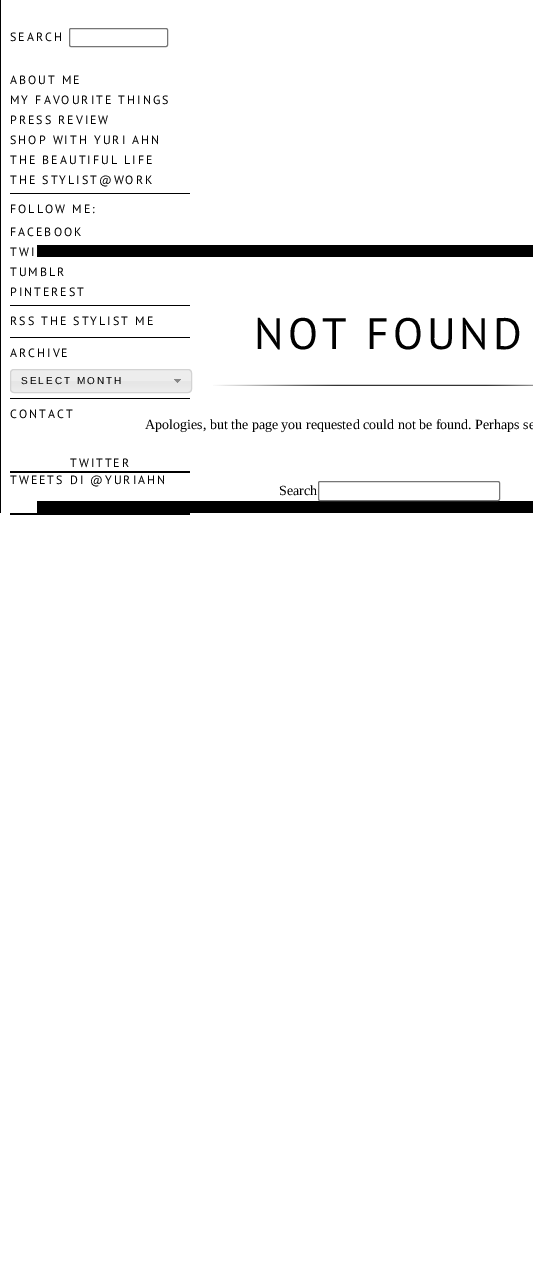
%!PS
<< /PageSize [533 1264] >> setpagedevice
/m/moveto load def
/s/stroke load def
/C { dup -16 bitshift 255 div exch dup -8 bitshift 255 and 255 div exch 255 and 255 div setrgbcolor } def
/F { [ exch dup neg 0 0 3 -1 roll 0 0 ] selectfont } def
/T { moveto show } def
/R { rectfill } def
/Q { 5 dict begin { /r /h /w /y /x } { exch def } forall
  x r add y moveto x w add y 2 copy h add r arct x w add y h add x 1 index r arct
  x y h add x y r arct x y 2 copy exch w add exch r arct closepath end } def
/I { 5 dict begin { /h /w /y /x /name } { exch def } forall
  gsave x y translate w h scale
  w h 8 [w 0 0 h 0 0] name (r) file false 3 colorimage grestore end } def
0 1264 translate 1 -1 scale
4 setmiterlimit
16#FFFFFF C
0 0 533 1264 R
/PTSans-Regular 12 F
16#000000 C
10 41 m 2 0 (SEARCH) ashow
16#767676 C
69.5 28.5 98 18 1.5 Q s
16#000000 C
10 84 m 2 0 (ABOUT ME) ashow
10 104 m 2 0 (MY FAVOURITE THINGS) ashow
10 124 m 2 0 (PRESS REVIEW) ashow
10 144 m 2 0 (SHOP WITH YURI AHN) ashow
10 164 m 2 0 (THE BEAUTIFUL LIFE) ashow
10 184 m 2 0 (THE STYLIST@WORK) ashow
10 193 180 1 R
10 213 m 2 0 (FOLLOW ME:) ashow
10 236 m 2 0 (FACEBOOK) ashow
10 256 m 2 0 (TWI) ashow
10 276 m 2 0 (TUMBLR) ashow
10 296 m 2 0 (PINTEREST) ashow
10 305 180 1 R
10 325 m 2 0 (RSS THE STYLIST ME) ashow
10 337 180 1 R
10 357 m 2 0 (ARCHIVE) ashow
(1.rgb) 10 369 182 24 I
16#D3D3D3 C
10.5 369.5 181 23 3.5 Q s
/LiberationSans-Regular 10 F
16#000000 C
21 384 m 2 0 (SELECT MONTH) ashow
(2.rgb) 174 379 7 4 I
10 398 180 1 R
/PTSans-Regular 12 F
10 418 m 2 0 (CONTACT) ashow
10 471 180 2 R
70 467 m 2 0 (TWITTER) ashow
10 484 m 2 0 (TWEETS DI @YURIAHN) ashow
10 513 180 2 R
0 0 1 513 R
37 245 496 12 R
37 501 496 12 R
(3.rgb) 213 384 320 2 I
/PTSans-Regular 44 F
254 349 m 4 0 (NOT FOUND) ashow
/LiberationSerif-Regular 14 F
(Apologies, but the page you requested could not be found. Perhaps se) 145 429 T
(Search) 279 495 T
16#767676 C
318.5 481.5 181 19 1.5 Q s
showpage
